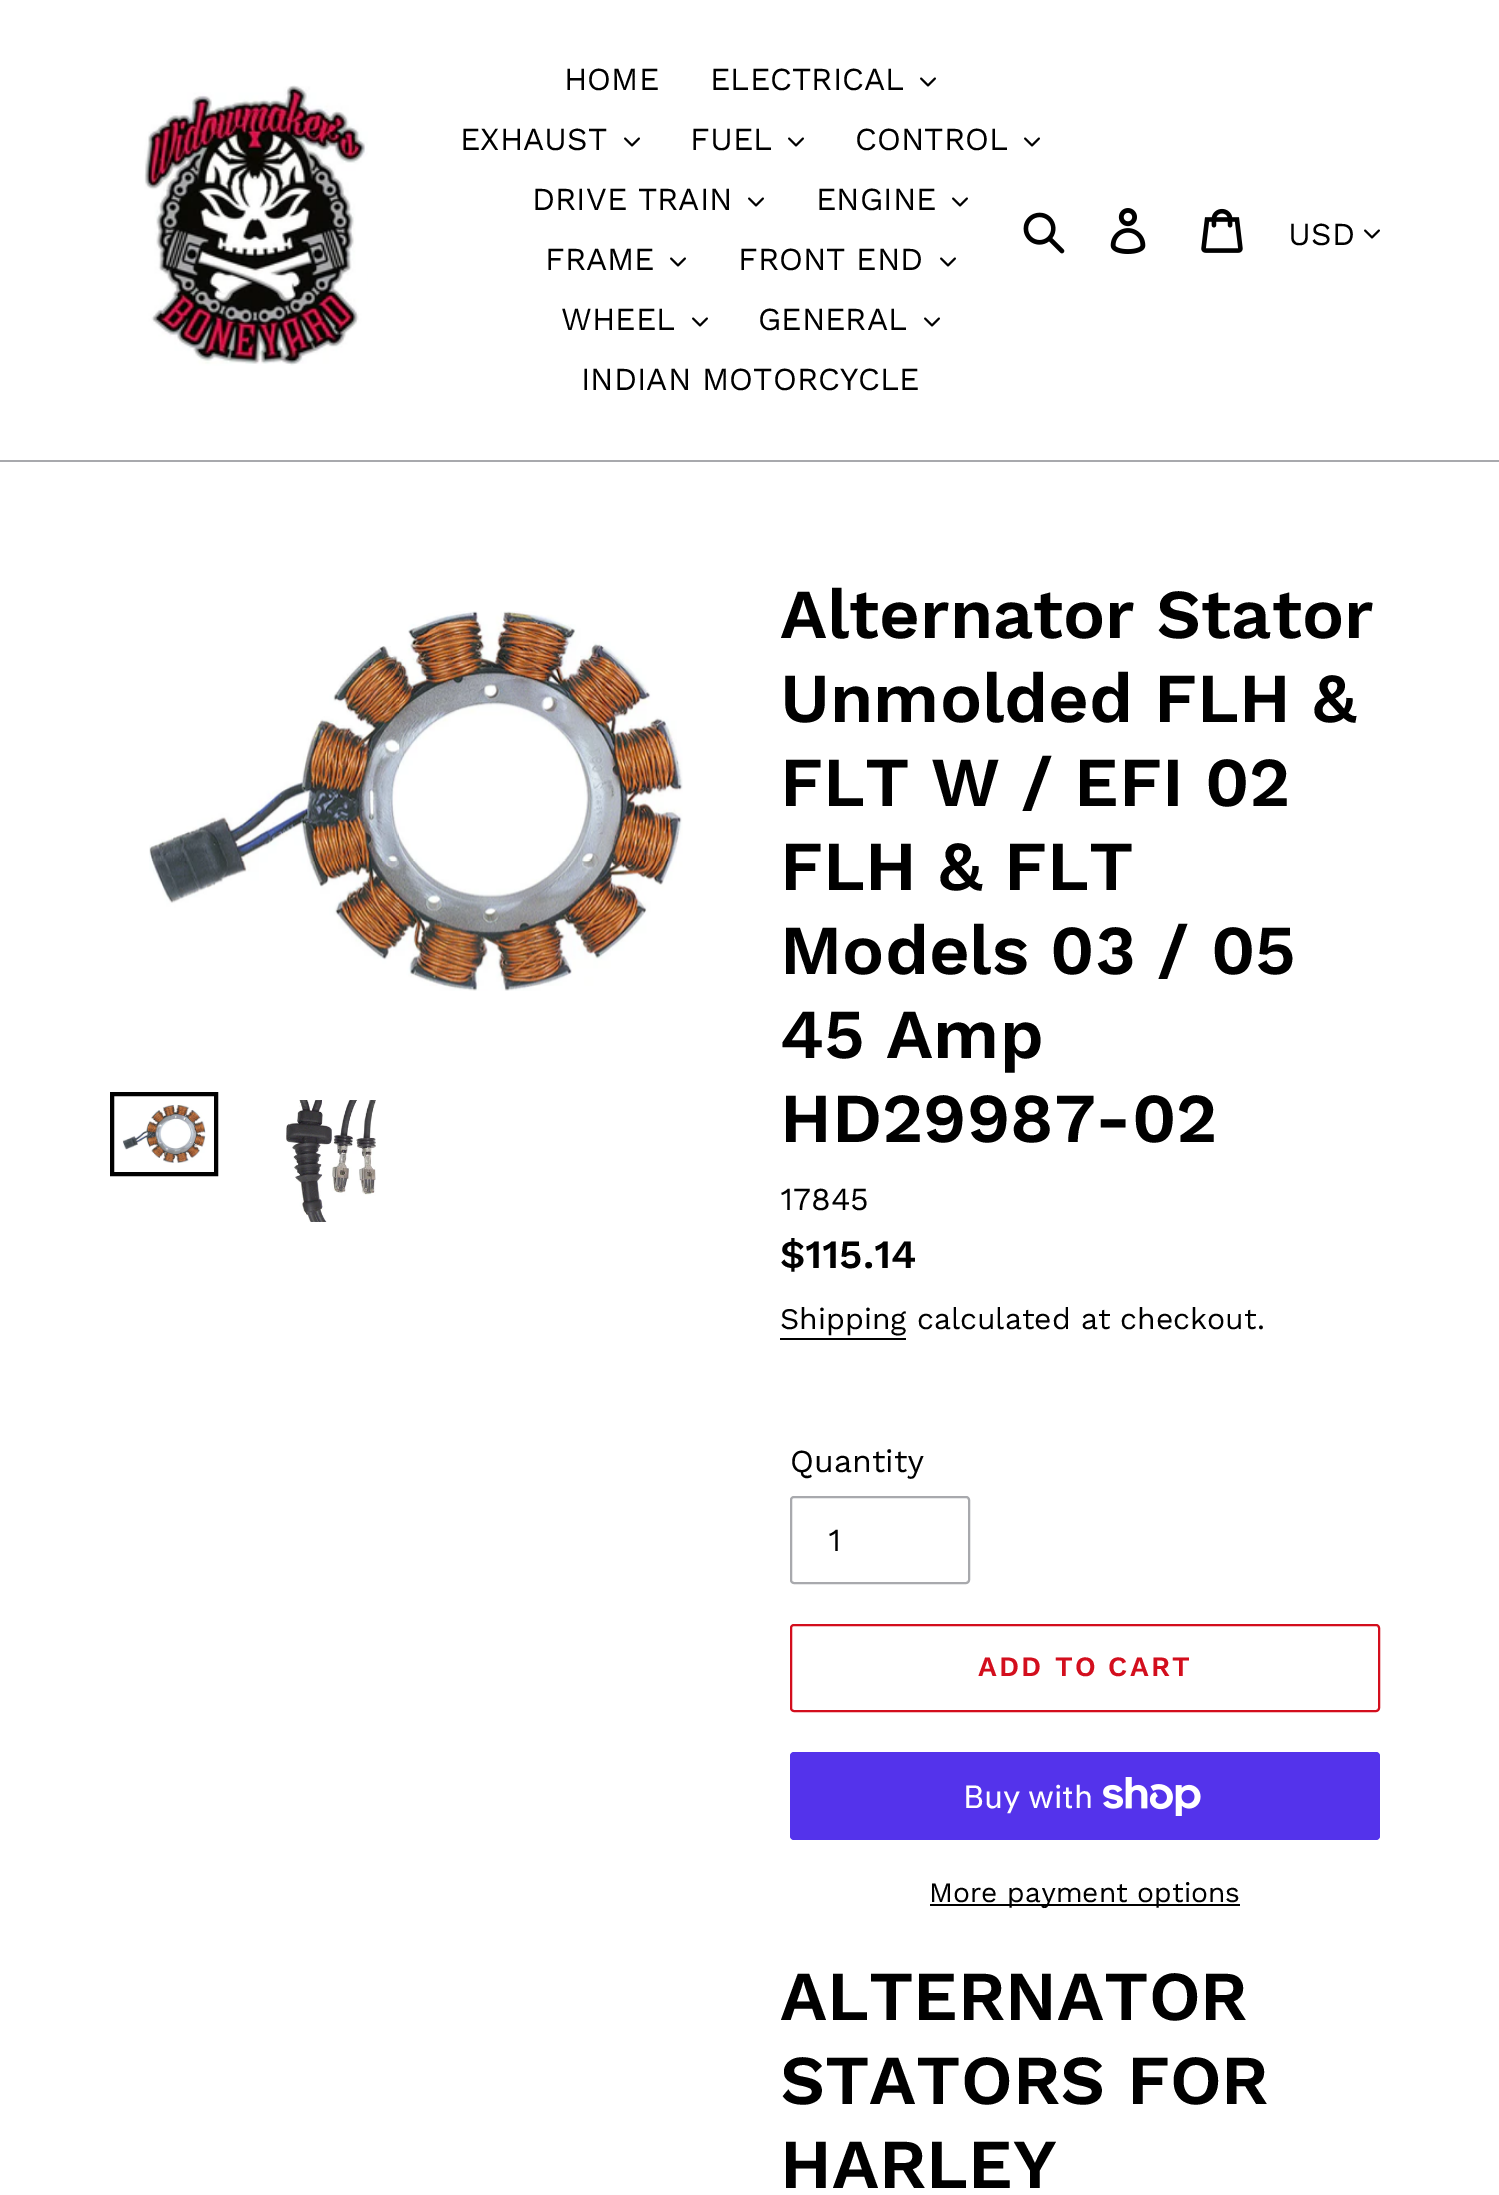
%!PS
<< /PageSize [1499 2195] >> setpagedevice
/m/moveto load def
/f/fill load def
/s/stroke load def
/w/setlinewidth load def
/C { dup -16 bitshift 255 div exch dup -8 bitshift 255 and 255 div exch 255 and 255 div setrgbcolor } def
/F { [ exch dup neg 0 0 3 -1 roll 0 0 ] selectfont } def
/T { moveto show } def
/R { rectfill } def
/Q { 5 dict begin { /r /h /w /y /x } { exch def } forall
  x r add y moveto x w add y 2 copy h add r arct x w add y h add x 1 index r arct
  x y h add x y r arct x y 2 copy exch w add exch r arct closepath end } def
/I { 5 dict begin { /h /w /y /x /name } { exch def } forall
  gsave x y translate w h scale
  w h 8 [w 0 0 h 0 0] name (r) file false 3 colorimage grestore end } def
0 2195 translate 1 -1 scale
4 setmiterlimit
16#FFFFFF C
0 0 1499 2195 R
16#A8A9AD C
0 460 1499 2 R
(1.rgb) 144 85 224 281 I
/WorkSans-Regular 32 F
16#000000 C
(HOME) 564 90 T
(ELECTRICAL) 710 90 T
(2.rgb) 920 77 16 10 I
(EXHAUST) 460 150 T
(2.rgb) 624 137 16 10 I
(FUEL) 690 150 T
(2.rgb) 788 137 16 10 I
(CONTROL) 855 150 T
(2.rgb) 1024 137 16 10 I
(DRIVE TRAIN) 532 210 T
(2.rgb) 748 197 16 10 I
(ENGINE) 816 210 T
(2.rgb) 952 197 16 10 I
(FRAME) 545 270 T
(2.rgb) 670 257 16 10 I
(FRONT END) 738 270 T
(2.rgb) 940 257 16 10 I
(WHEEL) 561 330 T
(2.rgb) 692 317 16 10 I
(GENERAL) 758 330 T
(2.rgb) 924 317 16 10 I
(INDIAN MOTORCYCLE) 581 390 T
(3.rgb) 1023 212 42 42 I
(4.rgb) 1110 208 36 46 I
(5.rgb) 1201 208 42 45 I
(USD) 1288 245 T
(2.rgb) 1364 229 16 10 I
(6.rgb) 149 611 534 380 I
4 w
112 1094 104 80 rectstroke
(7.rgb) 122 1104 84 59 I
(8.rgb) 286 1100 90 122 I
/WorkSans-SemiBold 70 F
(Alternator Stator) 780 638 T
(Unmolded FLH &) 780 722 T
(FLT W / EFI 02) 780 806 T
(FLH & FLT) 780 890 T
(Models 03 / 05) 780 974 T
(45 Amp) 780 1058 T
(HD29987-02) 780 1142 T
/WorkSans-Regular 32 F
(17845) 780 1210 T
/WorkSans-SemiBold 40 F
($115.14) 780 1268 T
/WorkSans-Regular 30 F
(Shipping calculated at checkout.) 780 1329 T
780 1338 126 2 R
/WorkSans-Regular 32 F
(Quantity) 790 1472 T
16#A8A9AD C
2 w
791 1497 178 86 3 Q s
16#000000 C
(1) 828 1551 T
16#D30E1D C
791 1625 588 86 3 Q s
/WorkSans-SemiBold 28 F
978 1676 m 2.25 0 (ADD TO CART) ashow
16#5433EB C
790 1752 590 88 4 Q f
/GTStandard-Regular 32 F
16#FFFFFF C
(Buy with) 963 1808 T
(9.rgb) 1103 1777 98 39 I
16#000000 C
930 1904 310 2 R
/WorkSans-Regular 28 F
(More payment options) 929 1902 T
/WorkSans-SemiBold 70 F
(ALTERNATOR) 780 2020 T
(STATORS FOR) 780 2104 T
(HARLEY) 780 2188 T
showpage
